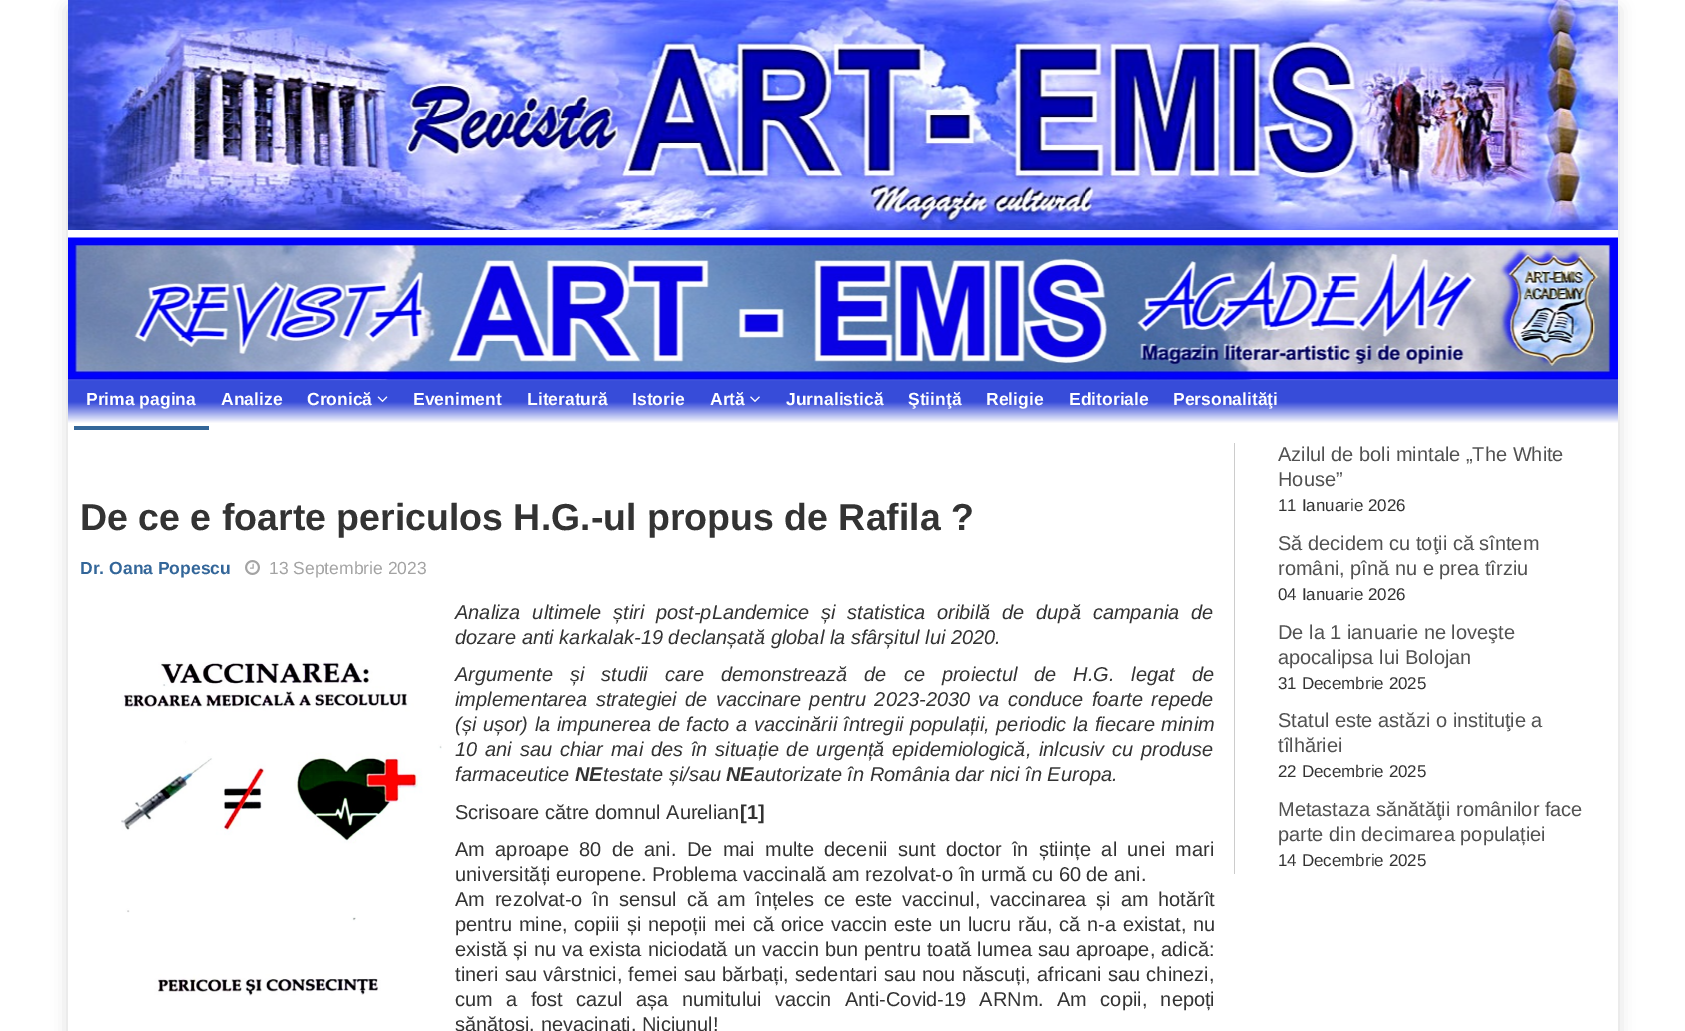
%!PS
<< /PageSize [1685 1031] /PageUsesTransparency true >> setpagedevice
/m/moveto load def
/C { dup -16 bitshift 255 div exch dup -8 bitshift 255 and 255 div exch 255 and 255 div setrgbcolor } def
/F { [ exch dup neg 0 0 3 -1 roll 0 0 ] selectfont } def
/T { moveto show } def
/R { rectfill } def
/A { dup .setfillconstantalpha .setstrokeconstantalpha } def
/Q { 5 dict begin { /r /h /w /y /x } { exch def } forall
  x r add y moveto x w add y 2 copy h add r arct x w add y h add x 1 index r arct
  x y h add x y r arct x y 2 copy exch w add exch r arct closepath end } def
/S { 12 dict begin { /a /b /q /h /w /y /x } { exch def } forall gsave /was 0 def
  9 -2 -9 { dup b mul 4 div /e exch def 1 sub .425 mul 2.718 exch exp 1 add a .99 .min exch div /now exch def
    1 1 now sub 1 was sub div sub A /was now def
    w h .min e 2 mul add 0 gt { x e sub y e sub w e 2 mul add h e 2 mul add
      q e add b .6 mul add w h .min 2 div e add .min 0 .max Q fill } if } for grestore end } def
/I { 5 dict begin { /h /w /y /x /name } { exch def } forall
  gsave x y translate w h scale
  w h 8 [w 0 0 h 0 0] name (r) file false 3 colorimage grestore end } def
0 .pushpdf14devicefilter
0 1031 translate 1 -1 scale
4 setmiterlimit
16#FFFFFF C
0 0 1685 1031 R
16#000000 C
68 9 1550 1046 0 8 .15 S
16#FFFFFF C
68 230 1550 801 R
(1.rgb) 68 0 1550 230 I
(2.rgb) 68 237 1550 143 I
(3.rgb) 68 380 1550 43 I
(4.rgb) 68 379 1550 2 I
/LiberationSans-Bold 17.5 F
(Prima pagina) 86 405 T
16#336699 C
74 426 135 4 R
16#FFFFFF C
(Analize) 221 405 T
(Cronică) 307 405 T
(5.rgb) 377 396 11 6 I
(Eveniment) 413 405 T
(Literatură) 527 405 T
(Istorie) 632 405 T
(Artă) 710 405 T
(6.rgb) 750 396 10 6 I
(Jurnalistică) 786 405 T
(Ştiinţă) 908 405 T
(Religie) 986 405 T
(Editoriale) 1069 405 T
(Personalităţi) 1173 405 T
/Arimo-Bold 37.5 F
16#333333 C
(De ce e foarte periculos H.G.-ul propus de Rafila ?) 80 530 T
/LiberationSans-Bold 17.5 F
16#336699 C
(Dr. Oana Popescu) 80 574 T
(7.rgb) 245 560 15 15 I
/LiberationSans-Regular 17.5 F
16#A3A3A3 C
(13 Septembrie 2023) 269 574 T
(8.rgb) 121 662 321 334 I
/LiberationSans-Italic 20 F
16#333333 C
455 619 m 6.25 0 32 (Analiza ultimele știri post-pLandemice și statistica oribilă de după campania de) widthshow
(dozare anti karkalak-19 declanșată global la sfârșitul lui 2020.) 455 644 T
455 681 m 11.4 0 32 (Argumente și studii care demonstrează de ce proiectul de H.G. legat de) widthshow
455 706 m 2.75 0 32 (implementarea strategiei de vaccinare pentru 2023-2030 va conduce foarte repede) widthshow
455 731 m .9 0 32 (\(și ușor\) la impunerea de facto a vaccinării întregii populații, periodic la fiecare minim) widthshow
455 756 m 2.25 0 32 (10 ani sau chiar mai des în situație de urgență epidemiologică, inlcusiv cu produse) widthshow
(farmaceutice) 455 781 T
/LiberationSans-BoldItalic 20 F
(NE) 575 781 T
/LiberationSans-Italic 20 F
(testate și/sau) 603 781 T
/LiberationSans-BoldItalic 20 F
(NE) 726 781 T
/LiberationSans-Italic 20 F
(autorizate în România dar nici în Europa.) 754 781 T
/LiberationSans-Regular 20 F
(Scrisoare către domnul Aurelian) 455 819 T
/LiberationSans-Bold 20 F
([1]) 740 819 T
/LiberationSans-Regular 20 F
455 856 m 4.75 0 32 (Am aproape 80 de ani. De mai multe decenii sunt doctor în științe al unei mari) widthshow
(universități europene. Problema vaccinală am rezolvat-o în urmă cu 60 de ani.) 455 881 T
455 906 m 4.25 0 32 (Am rezolvat-o în sensul că am înțeles ce este vaccinul, vaccinarea și am hotărît) widthshow
455 931 m 1.25 0 32 (pentru mine, copiii și nepoții mei că orice vaccin este un lucru rău, că n-a existat, nu) widthshow
455 956 m .5 0 32 (există și nu va exista niciodată un vaccin bun pentru toată lumea sau aproape, adică:) widthshow
455 981 m .75 0 32 (tineri sau vârstnici, femei sau bărbați, sedentari sau nou născuți, africani sau chinezi,) widthshow
455 1006 m 7.75 0 32 (cum a fost cazul așa numitului vaccin Anti-Covid-19 ARNm. Am copii, nepoți) widthshow
(sănătoși, nevacinați. Niciunul!) 455 1031 T
16#CCCCCC C
1234 443 1 431 R
16#515151 C
(Azilul de boli mintale „The White) 1278 461 T
(House”) 1278 486 T
/LiberationSans-Regular 17 F
16#333333 C
(11 Ianuarie 2026) 1278 511 T
/LiberationSans-Regular 20 F
16#515151 C
(Să decidem cu toţii că sîntem) 1278 550 T
(români, pînă nu e prea tîrziu) 1278 575 T
/LiberationSans-Regular 17 F
16#333333 C
(04 Ianuarie 2026) 1278 600 T
/LiberationSans-Regular 20 F
16#515151 C
(De la 1 ianuarie ne loveşte) 1278 639 T
(apocalipsa lui Bolojan) 1278 664 T
/LiberationSans-Regular 17 F
16#333333 C
(31 Decembrie 2025) 1278 689 T
/LiberationSans-Regular 20 F
16#515151 C
(Statul este astăzi o instituţie a) 1278 727 T
(tîlhăriei) 1278 752 T
/LiberationSans-Regular 17 F
16#333333 C
(22 Decembrie 2025) 1278 777 T
/LiberationSans-Regular 20 F
16#515151 C
(Metastaza sănătăţii românilor face) 1278 816 T
(parte din decimarea populației) 1278 841 T
/LiberationSans-Regular 17 F
16#333333 C
(14 Decembrie 2025) 1278 866 T
.poppdf14devicefilter showpage
